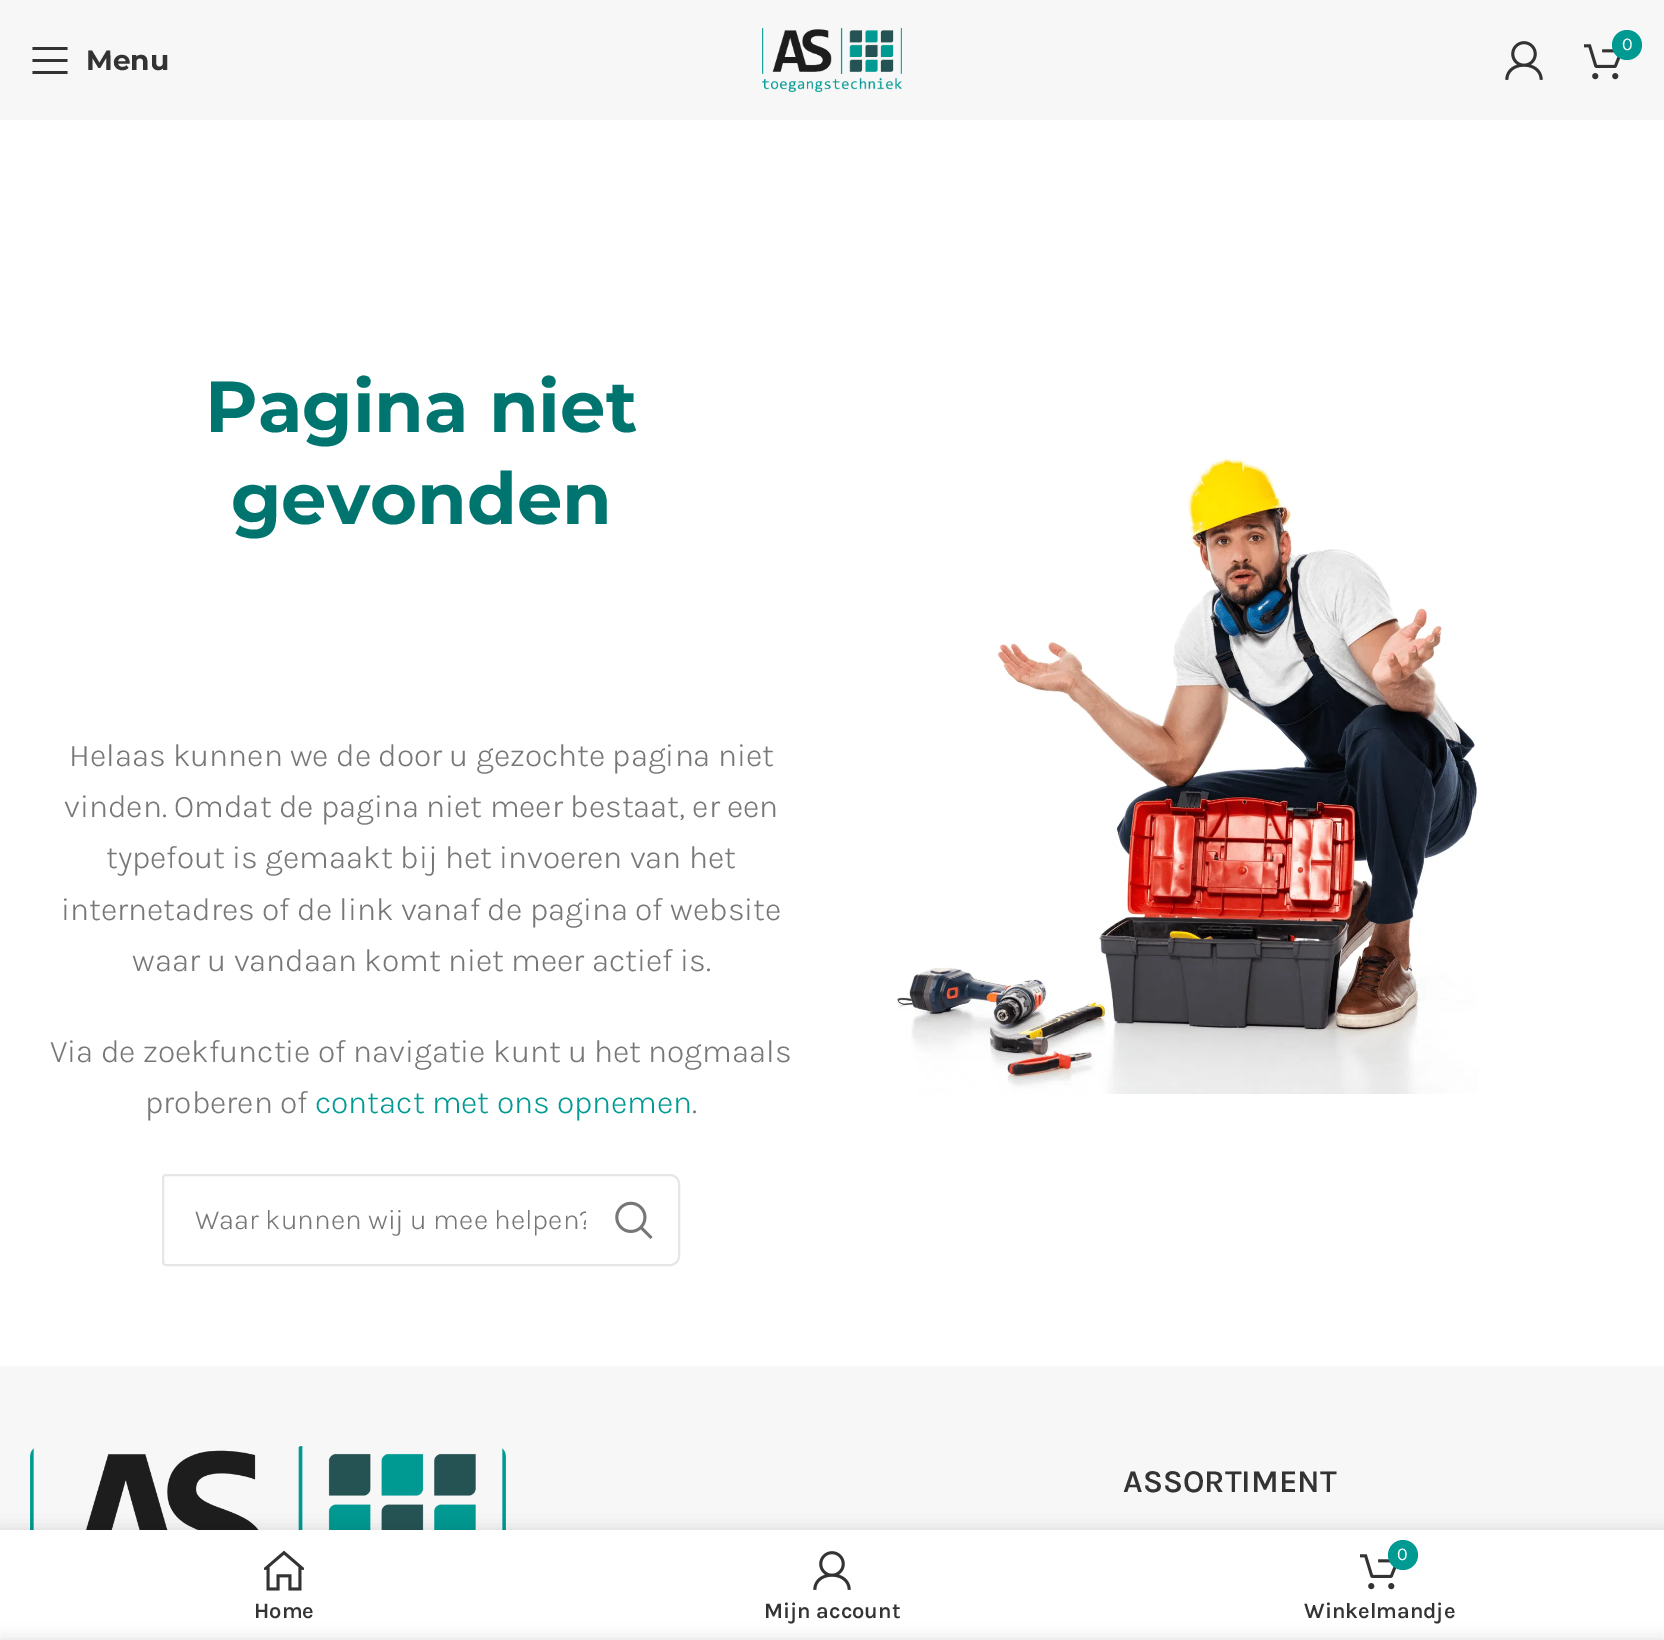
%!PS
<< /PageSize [1664 1640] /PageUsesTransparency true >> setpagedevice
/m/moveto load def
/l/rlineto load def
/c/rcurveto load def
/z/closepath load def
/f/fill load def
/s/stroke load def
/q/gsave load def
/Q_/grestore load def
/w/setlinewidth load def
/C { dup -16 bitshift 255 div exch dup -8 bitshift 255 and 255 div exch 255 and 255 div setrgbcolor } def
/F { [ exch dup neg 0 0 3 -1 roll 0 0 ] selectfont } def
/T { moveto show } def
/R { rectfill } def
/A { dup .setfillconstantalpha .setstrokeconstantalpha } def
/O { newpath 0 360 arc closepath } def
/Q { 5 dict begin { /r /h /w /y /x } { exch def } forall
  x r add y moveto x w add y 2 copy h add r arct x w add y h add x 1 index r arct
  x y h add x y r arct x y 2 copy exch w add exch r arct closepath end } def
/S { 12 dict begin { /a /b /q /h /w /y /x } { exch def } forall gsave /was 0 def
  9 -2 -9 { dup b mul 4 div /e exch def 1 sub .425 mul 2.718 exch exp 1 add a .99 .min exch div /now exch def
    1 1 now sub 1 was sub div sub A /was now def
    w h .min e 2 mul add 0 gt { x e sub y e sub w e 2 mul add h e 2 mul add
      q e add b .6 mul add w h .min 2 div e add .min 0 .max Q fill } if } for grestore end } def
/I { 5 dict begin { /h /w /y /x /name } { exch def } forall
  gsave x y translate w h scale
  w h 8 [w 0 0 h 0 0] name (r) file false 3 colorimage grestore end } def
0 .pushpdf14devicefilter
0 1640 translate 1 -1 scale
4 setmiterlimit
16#FFFFFF C
0 0 1664 1640 R
16#F7F7F7 C
0 0 1664 120 R
(1.rgb) 762 28 140 64 I
(2.rgb) 1505 41 38 39 I
(3.rgb) 1584 44 37 36 I
16#009A93 C
1627 45 15 O f
/Karla-Regular 18 F
16#FFFFFF C
(0) 1622 50 T
16#333333 C
32.5 50 m 35 0 l 0 -3 l -35 0 l z 32.5 62 m 35 0 l 0 -3 l -35 0 l z 32.5 74 m 35 0 l 0 -3 l -35 0 l z f
/Montserrat-Bold 28 F
(Menu) 86 70 T
/Montserrat-Bold 72 F
16#00756F C
(Pagina niet) 205 432 T
(gevonden) 231 524 T
/Karla-Light 32 F
16#777777 C
(Helaas kunnen we de door u gezochte pagina niet) 69 766 T
(vinden. Omdat de pagina niet meer bestaat, er een) 64 817 T
(typefout is gemaakt bij het invoeren van het) 106 868 T
(internetadres of de link vanaf de pagina of website) 61 920 T
(waar u vandaan komt niet meer actief is.) 132 971 T
(Via de zoekfunctie of navigatie kunt u het nogmaals) 50 1062 T
(proberen of) 145 1113 T
16#009A93 C
(contact met ons opnemen) 315 1113 T
16#777777 C
(.) 692 1113 T
16#E6E6E6 C
2 w
166 1175 m 504 0 l 5 0 9 4 9 9 c 0 72 l 0 5 -4 9 -9 9 c -504 0 l -1.5 0 -3 -1.5 -3 -3 c 0 -84 l 0 -1.5 1.5 -3 3 -3 c z s
q
194 1204 392 34 rectclip
/Karla-Light 28 F
16#777777 C
(Waar kunnen wij u mee helpen?) 195 1229 T
Q_
(4.rgb) 615 1201 38 38 I
(5.rgb) 897 458 581 636 I
16#F7F7F7 C
0 1366 1664 164 R
(6.rgb) 30 1446 476 84 I
/Karla-SemiBold 32 F
16#333333 C
(ASSORTIMENT) 1123 1492 T
16#000000 C
0 1530 1664 110 0 9 .12 S
16#FFFFFF C
0 1530 1664 110 R
(7.rgb) 264 1550 40 41 I
/Karla-SemiBold 22 F
16#333333 C
(Home) 254 1618 T
(8.rgb) 813 1551 38 39 I
(Mijn account) 764 1618 T
(9.rgb) 1360 1554 37 36 I
16#009A93 C
1403 1555 15 O f
/Karla-Regular 18 F
16#FFFFFF C
(0) 1397 1560 T
/Karla-SemiBold 22 F
16#333333 C
(Winkelmandje) 1304 1618 T
16#000000 C
0 1640 1664 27 0 9 .14 S
.poppdf14devicefilter showpage
